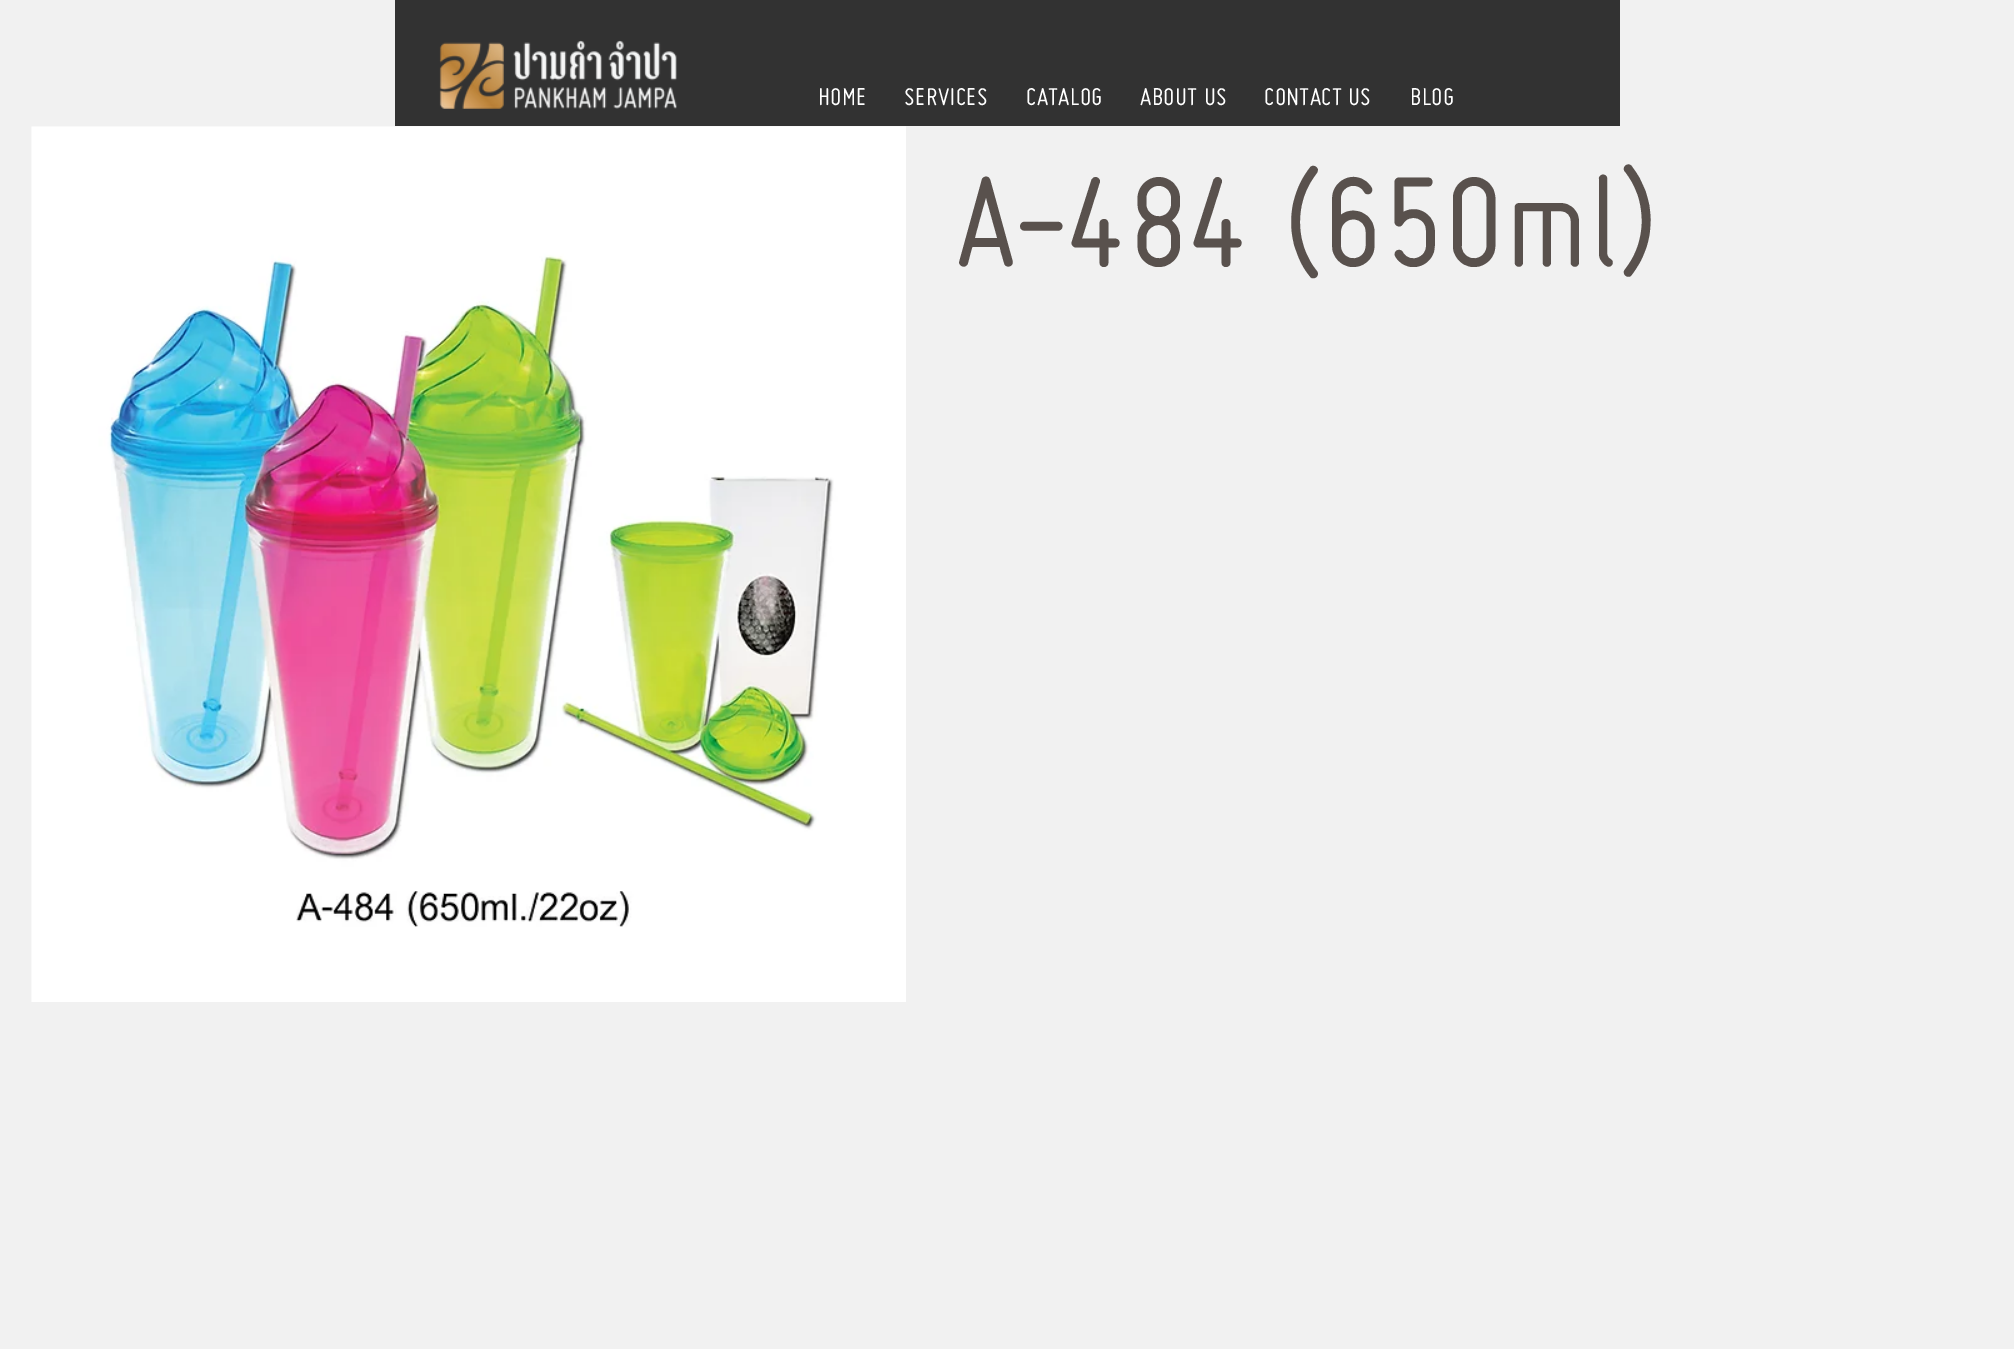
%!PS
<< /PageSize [2014 1349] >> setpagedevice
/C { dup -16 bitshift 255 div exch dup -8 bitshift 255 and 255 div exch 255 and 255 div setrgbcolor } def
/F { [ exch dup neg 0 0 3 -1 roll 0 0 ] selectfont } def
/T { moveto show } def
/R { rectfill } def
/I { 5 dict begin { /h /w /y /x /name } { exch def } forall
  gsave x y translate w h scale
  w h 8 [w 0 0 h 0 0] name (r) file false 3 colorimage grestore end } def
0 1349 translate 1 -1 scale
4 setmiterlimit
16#F1F1F1 C
0 0 2014 1349 R
16#323232 C
395 0 1225 126 R
(1.rgb) 439 40 238 69 I
/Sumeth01-Regular 23.75 F
16#FFFFFF C
(HOME) 818 105 T
(SERVICES) 904 105 T
(CATALOG) 1026 105 T
(ABOUT US) 1140 105 T
(CONTACT US) 1264 105 T
(BLOG) 1410 105 T
(2.rgb) 31 126 875 876 I
/Sumeth01-Regular 125 F
16#59514D C
(A-484 \(650ml\)) 956 266 T
showpage
